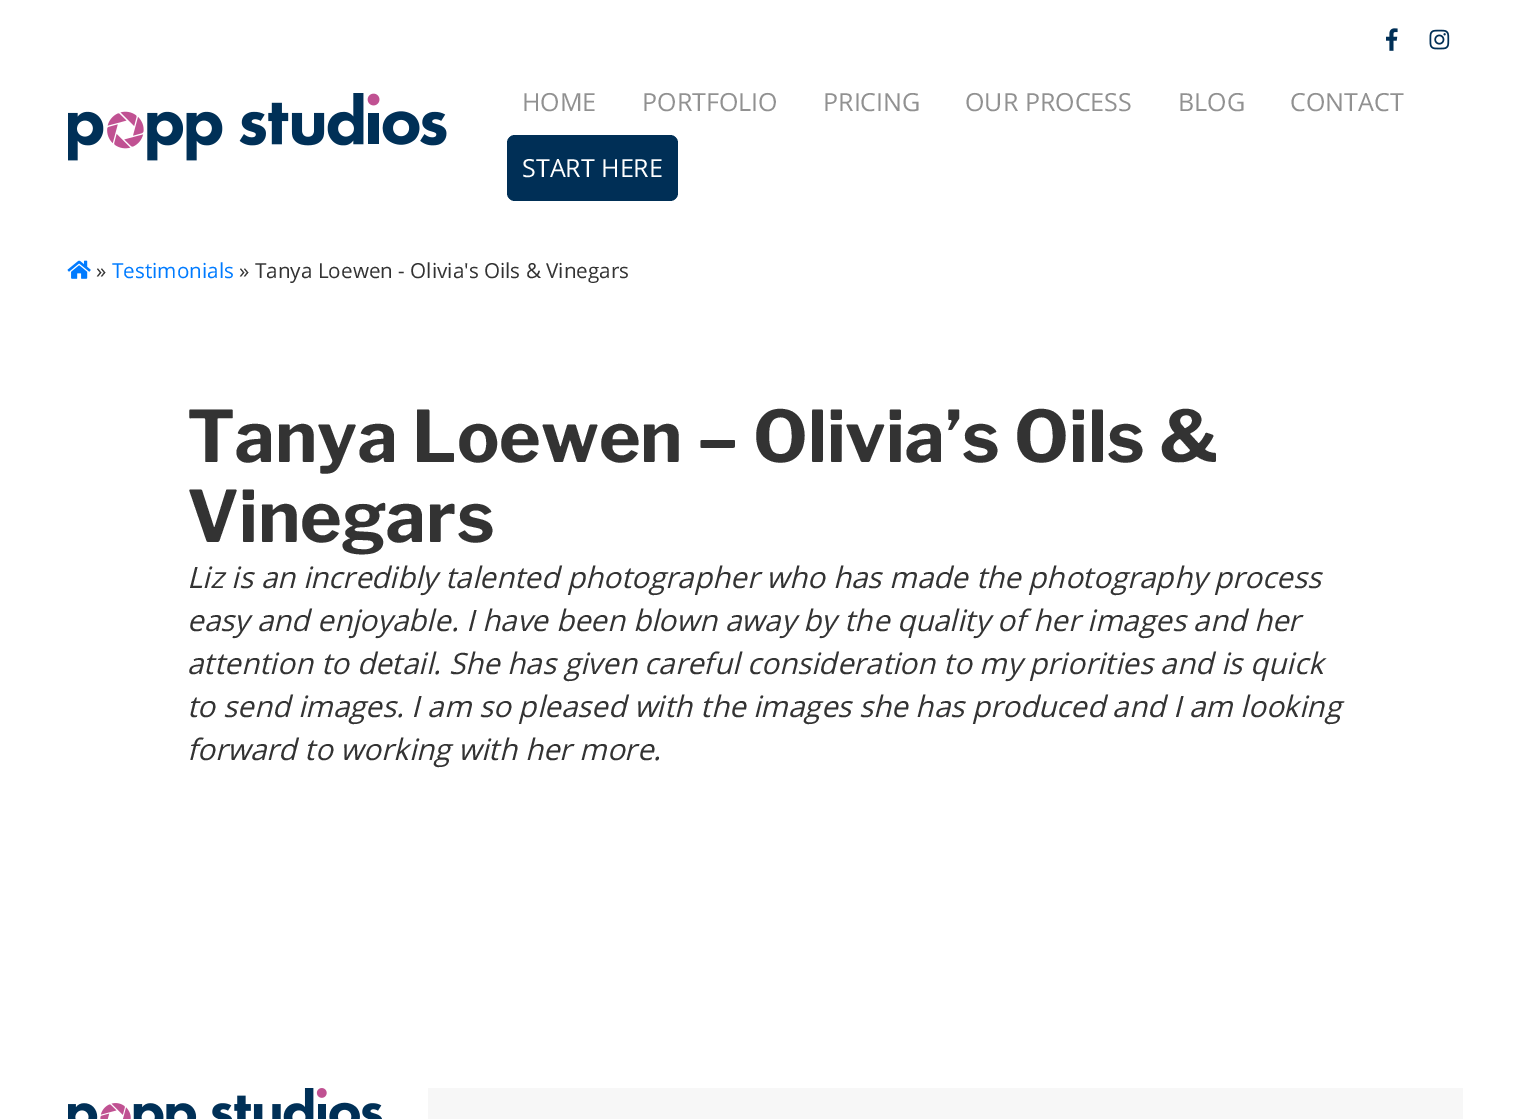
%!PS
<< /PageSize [1530 1119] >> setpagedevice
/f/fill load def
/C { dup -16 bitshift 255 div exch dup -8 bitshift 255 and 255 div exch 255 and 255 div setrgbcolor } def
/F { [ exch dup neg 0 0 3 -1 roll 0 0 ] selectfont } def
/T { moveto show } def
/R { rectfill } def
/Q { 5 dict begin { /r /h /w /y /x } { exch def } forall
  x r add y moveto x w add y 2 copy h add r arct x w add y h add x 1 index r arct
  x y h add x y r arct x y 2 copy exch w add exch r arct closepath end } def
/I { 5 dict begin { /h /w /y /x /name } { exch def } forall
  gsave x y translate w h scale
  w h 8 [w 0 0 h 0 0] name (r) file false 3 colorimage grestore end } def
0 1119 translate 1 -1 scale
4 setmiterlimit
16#FFFFFF C
0 0 1530 1119 R
(1.rgb) 68 93 379 68 I
(2.rgb) 1386 28 12 23 I
(3.rgb) 1429 29 21 21 I
/OpenSans-Regular 25 F
16#919191 C
(HOME) 522 111 T
(PORTFOLIO) 642 111 T
(PRICING) 823 111 T
(OUR PROCESS) 965 111 T
(BLOG) 1178 111 T
(CONTACT) 1290 111 T
16#002F56 C
507 135 171 66 8 Q f
16#FFFFFF C
(START HERE) 522 177 T
(4.rgb) 67 260 24 19 I
/OpenSans-Regular 20.7 F
16#333333 C
(») 96 278 T
16#007BFF C
(Testimonials) 112 278 T
16#333333 C
(» Tanya Loewen - Olivia's Oils & Vinegars) 239 278 T
/LibreFranklin-Bold 70.9 F
(Tanya Loewen – Olivia’s Oils &) 187 462 T
(Vinegars) 187 542 T
/OpenSans-Italic 29.55 F
(Liz is an incredibly talented photographer who has made the photography process) 187 588 T
(easy and enjoyable. I have been blown away by the quality of her images and her) 187 631 T
(attention to detail. She has given careful consideration to my priorities and is quick) 187 674 T
(to send images. I am so pleased with the images she has produced and I am looking) 187 717 T
(forward to working with her more.) 187 760 T
(5.rgb) 68 1088 314 31 I
16#F7F7F7 C
428 1088 1035 31 R
showpage
